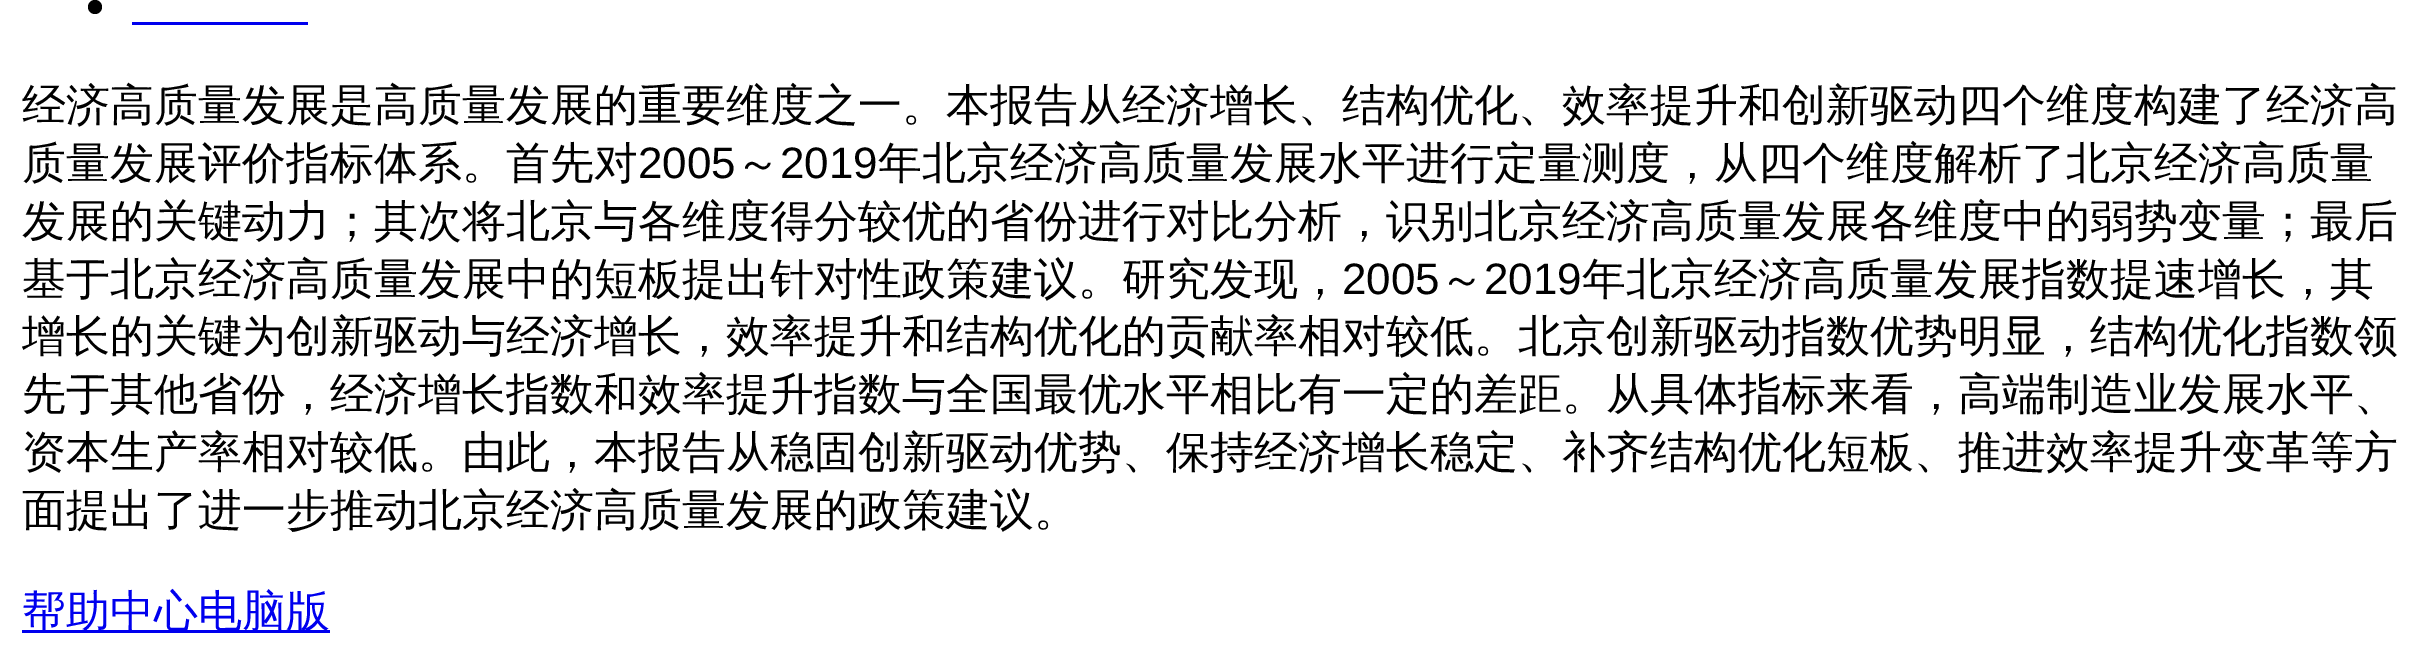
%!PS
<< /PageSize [2419 653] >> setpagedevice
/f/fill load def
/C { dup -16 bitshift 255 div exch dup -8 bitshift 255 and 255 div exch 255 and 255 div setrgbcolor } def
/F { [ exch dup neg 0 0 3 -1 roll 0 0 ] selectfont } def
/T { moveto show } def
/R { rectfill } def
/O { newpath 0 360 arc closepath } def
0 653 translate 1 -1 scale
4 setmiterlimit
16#FFFFFF C
0 0 2419 653 R
16#000000 C
95 7 7 O f
16#0000EE C
132 22 176 3 R
/WenQuanYiZenHei-Medium 44 F
16#000000 C
(经济高质量发展是高质量发展的重要维度之一。本报告从经济增长、结构优化、效率提升和创新驱动四个维度构建了经济高) 22 120 T
(质量发展评价指标体系。首先对) 22 178 T
/LiberationSans-Regular 44 F
(2005) 638 178 T
/WenQuanYiZenHei-Medium 44 F
(～) 736 178 T
/LiberationSans-Regular 44 F
(2019) 780 178 T
/WenQuanYiZenHei-Medium 44 F
(年北京经济高质量发展水平进行定量测度，从四个维度解析了北京经济高质量) 878 178 T
(发展的关键动力；其次将北京与各维度得分较优的省份进行对比分析，识别北京经济高质量发展各维度中的弱势变量；最后) 22 236 T
(基于北京经济高质量发展中的短板提出针对性政策建议。研究发现，) 22 294 T
/LiberationSans-Regular 44 F
(2005) 1342 294 T
/WenQuanYiZenHei-Medium 44 F
(～) 1440 294 T
/LiberationSans-Regular 44 F
(2019) 1484 294 T
/WenQuanYiZenHei-Medium 44 F
(年北京经济高质量发展指数提速增长，其) 1582 294 T
(增长的关键为创新驱动与经济增长，效率提升和结构优化的贡献率相对较低。北京创新驱动指数优势明显，结构优化指数领) 22 351 T
(先于其他省份，经济增长指数和效率提升指数与全国最优水平相比有一定的差距。从具体指标来看，高端制造业发展水平、) 22 409 T
(资本生产率相对较低。由此，本报告从稳固创新驱动优势、保持经济增长稳定、补齐结构优化短板、推进效率提升变革等方) 22 467 T
(面提出了进一步推动北京经济高质量发展的政策建议。) 22 525 T
16#0000EE C
22 630 308 3 R
(帮助中心电脑版) 22 626 T
showpage
